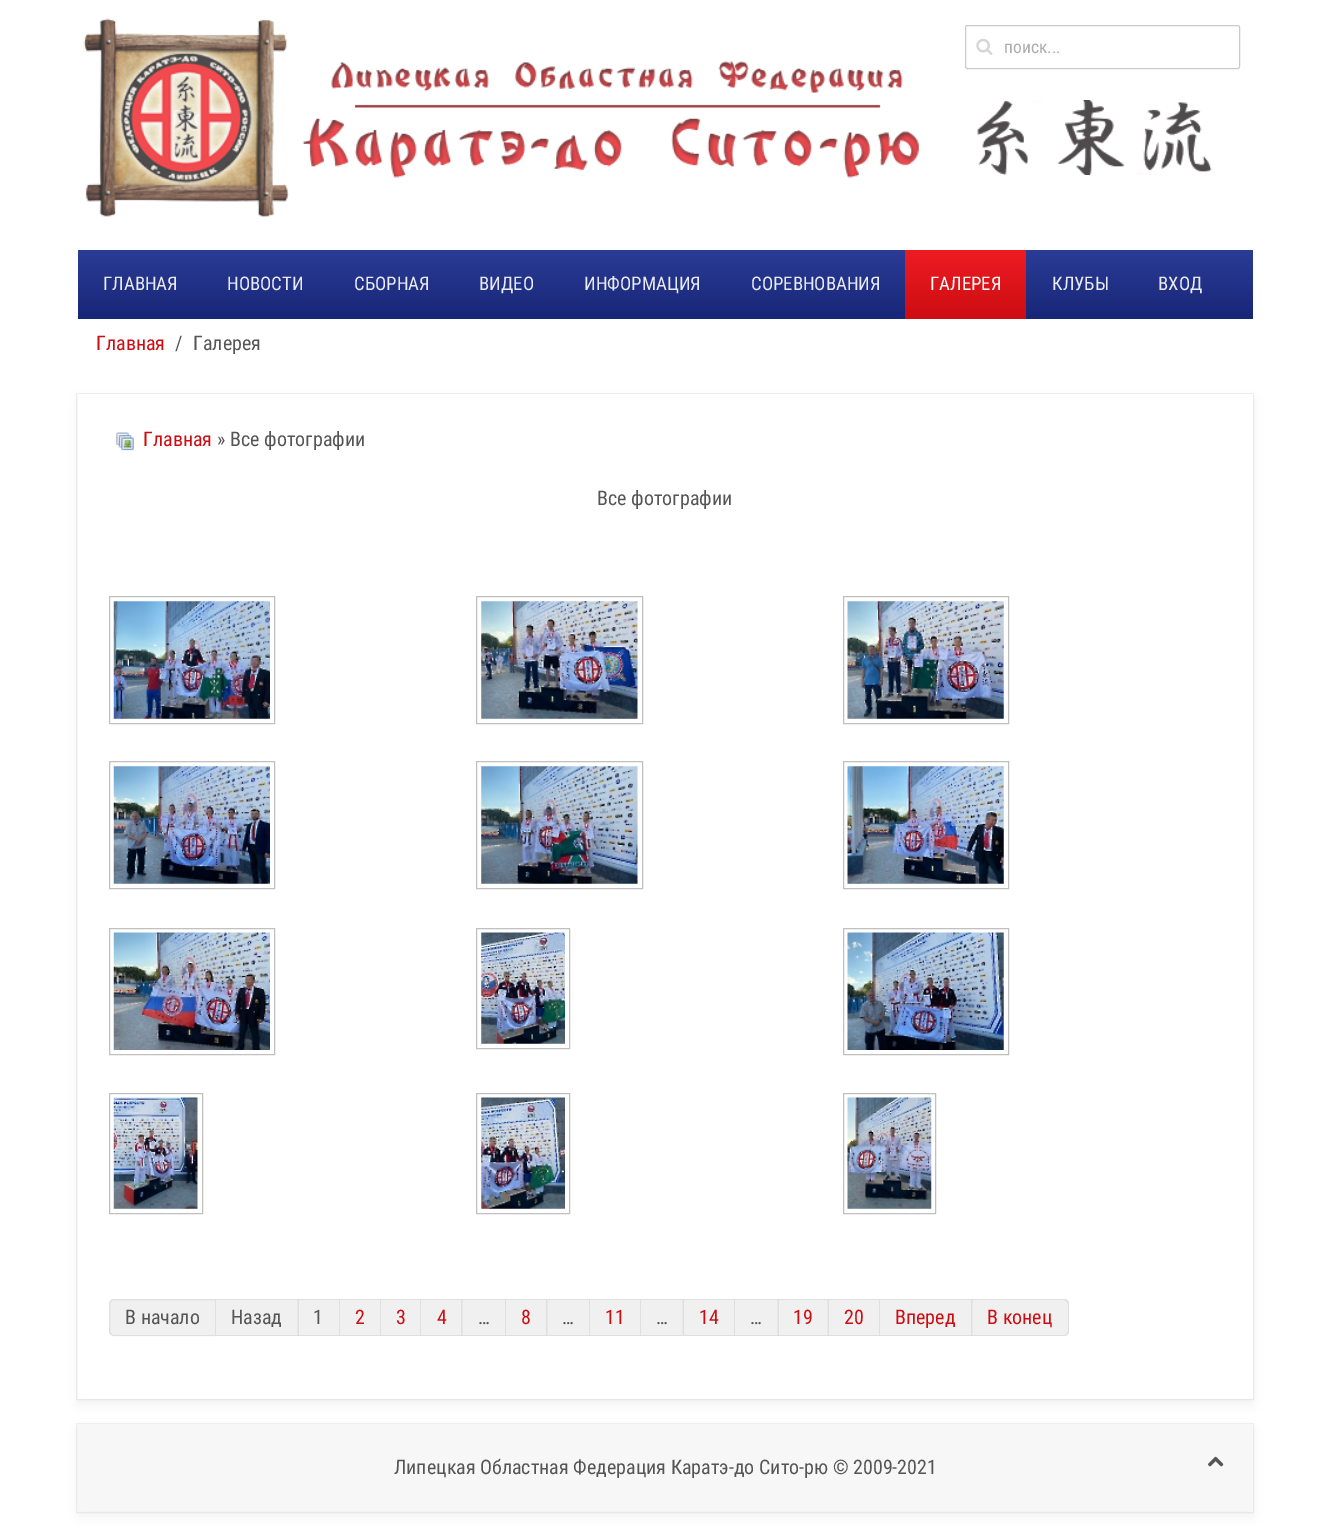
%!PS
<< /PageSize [1329 1535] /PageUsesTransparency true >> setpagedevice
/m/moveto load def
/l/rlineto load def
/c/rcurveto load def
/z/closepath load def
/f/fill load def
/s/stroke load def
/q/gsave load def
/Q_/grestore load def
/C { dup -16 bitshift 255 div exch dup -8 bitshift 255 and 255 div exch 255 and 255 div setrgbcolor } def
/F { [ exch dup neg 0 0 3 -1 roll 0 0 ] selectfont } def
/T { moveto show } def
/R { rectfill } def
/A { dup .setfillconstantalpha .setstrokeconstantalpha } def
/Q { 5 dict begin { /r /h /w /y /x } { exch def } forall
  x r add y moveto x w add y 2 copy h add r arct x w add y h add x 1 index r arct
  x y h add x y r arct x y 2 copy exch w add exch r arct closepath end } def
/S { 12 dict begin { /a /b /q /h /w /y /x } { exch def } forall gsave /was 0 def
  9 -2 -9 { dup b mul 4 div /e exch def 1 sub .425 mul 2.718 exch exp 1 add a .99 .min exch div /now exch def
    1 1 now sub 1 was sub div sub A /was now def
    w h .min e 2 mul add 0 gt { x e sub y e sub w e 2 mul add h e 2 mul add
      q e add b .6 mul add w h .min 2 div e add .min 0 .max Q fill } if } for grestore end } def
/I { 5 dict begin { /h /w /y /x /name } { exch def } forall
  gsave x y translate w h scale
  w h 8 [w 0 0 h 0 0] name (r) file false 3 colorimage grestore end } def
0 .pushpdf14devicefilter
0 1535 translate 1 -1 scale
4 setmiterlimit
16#FFFFFF C
0 0 1329 1535 R
(1.rgb) 83 18 836 199 I
(2.rgb) 977 100 238 75 I
16#CACACA C
965.5 25.5 274 43 2 Q s
(3.rgb) 976 38 17 17 I
/RobotoCondensed-Regular 17.5 F
16#ADADAD C
(поиск...) 1004 53 T
q 78 250 m 1175 0 l 0 69 l -1175 0 l z clip newpath
<< /ShadingType 2 /ColorSpace /DeviceRGB /Coords [665 250 665 319] /Extend [true true] /Function << /FunctionType 2 /Domain [0 1] /C0 [.169 .235 .588] /C1 [.09 .149 .467] /N 1 >> >> shfill Q_
/RobotoCondensed-Regular 18.75 F
16#E9EAF3 C
(ГЛАВНАЯ) 103 290 T
(НОВОСТИ) 227 290 T
(СБОРНАЯ) 354 290 T
(ВИДЕО) 479 290 T
(ИНФОРМАЦИЯ) 584 290 T
(СОРЕВНОВАНИЯ) 751 290 T
q 905 250 m 121 0 l 0 69 l -121 0 l z clip newpath
<< /ShadingType 2 /ColorSpace /DeviceRGB /Coords [966 250 966 319] /Extend [true true] /Function << /FunctionType 2 /Domain [0 1] /C0 [.933 .11 .133] /C1 [.8 .051 .071] /N 1 >> >> shfill Q_
16#FFFFFF C
(ГАЛЕРЕЯ) 930 290 T
16#E9EAF3 C
(КЛУБЫ) 1052 290 T
(ВХОД) 1158 290 T
/RobotoCondensed-Regular 20 F
16#CC0D12 C
(Главная) 96 350 T
16#555555 C
(/) 175 350 T
(Галерея) 193 350 T
16#000000 C
78 399 1175 1005 0 6 .06 S
0.06 A
76.5 393.5 1177 1006 rectstroke
1 A
16#FFFFFF C
78 394 1175 1005 R
(4.rgb) 116 432 18 19 I
16#CC0D12 C
(Главная) 143 446 T
16#555555 C
(» Все фотографии) 217 446 T
(Все фотографии) 597 505 T
16#C0C0C0 C
109.5 596.5 165 127 rectstroke
(5.rgb) 113 601 157 118 I
476.5 596.5 166 127 rectstroke
(6.rgb) 481 601 157 118 I
843.5 596.5 165 127 rectstroke
(7.rgb) 847 601 157 118 I
109.5 761.5 165 127 rectstroke
(8.rgb) 113 766 157 118 I
476.5 761.5 166 127 rectstroke
(9.rgb) 481 766 157 118 I
843.5 761.5 165 127 rectstroke
(10.rgb) 847 766 157 118 I
109.5 928.5 165 126 rectstroke
(11.rgb) 113 932 157 118 I
476.5 928.5 93 120 rectstroke
(12.rgb) 481 932 84 112 I
843.5 928.5 165 126 rectstroke
(13.rgb) 847 932 157 118 I
109.5 1093.5 93 120 rectstroke
(14.rgb) 113 1097 85 112 I
476.5 1093.5 93 120 rectstroke
(15.rgb) 481 1097 84 112 I
843.5 1093.5 92 120 rectstroke
(16.rgb) 847 1097 85 112 I
16#F0F0F0 C
114 1299 m 102 0 l 0 37 l -102 0 l -3 0 -5 -2 -5 -5 c 0 -27 l 0 -3 2 -5 5 -5 c z f
0.07 A
16#000000 C
114 1299.5 m 101.5 0 l 0 36 l -101.5 0 l -2.5 0 -4.5 -2 -4.5 -4.5 c 0 -27 l 0 -2.5 2 -4.5 4.5 -4.5 c z s
1 A
16#555555 C
(В начало) 125 1324 T
16#F0F0F0 C
216 1299 757 37 R
16#DFDFDF C
216 1299 m 83 0 l -1 1 l -82 0 l z f
0.07 A
16#000000 C
299 1299 m 0 37 l -1.5 -1 l 0 -35 l z f
299 1336 m -83 0 l 0 -1 l 82 0 l z f
1 A
16#555555 C
(Назад) 231 1324 T
16#DFDFDF C
299 1299 m 41 0 l -1 1 l -40 0 l z f
0.07 A
16#000000 C
340 1299 m 0 37 l -1 -1 l 0 -35 l z f
340 1336 m -41 0 l 0 -1 l 40 0 l z f
1 A
16#555555 C
(1) 313 1324 T
16#DFDFDF C
340 1299 m 41 0 l -1 1 l -40 0 l z f
0.07 A
16#000000 C
381 1299 m 0 37 l -1 -1 l 0 -35 l z f
381 1336 m -41 0 l 0 -1 l 40 0 l z f
1 A
16#CC0D12 C
(2) 355 1324 T
16#DFDFDF C
381 1299 m 40 0 l -1 1 l -39 0 l z f
0.07 A
16#000000 C
421 1299 m 0 37 l -1 -1 l 0 -35 l z f
421 1336 m -40 0 l 0 -1 l 39 0 l z f
1 A
16#CC0D12 C
(3) 396 1324 T
16#DFDFDF C
421 1299 m 41 0 l -1 1 l -40 0 l z f
462.5 1299 m 0 37 l -1.5 -1 l 0 -35 l z f
0.07 A
16#000000 C
462 1336 m -41 0 l 0 -1 l 40 0 l z f
1 A
16#CC0D12 C
(4) 437 1324 T
0.07 A
16#000000 C
462 1299 m 44 0 l -1 1 l -43 0 l z f
506 1299 m 0 37 l -1 -1 l 0 -35 l z f
506 1336 m -44 0 l 0 -1 l 43 0 l z f
1 A
16#555555 C
(…) 478 1324 T
16#DFDFDF C
506 1299 m 42 0 l -2 1 l -40 0 l z f
547.5 1299 m 0 37 l -1.5 -1 l 0 -35 l z f
0.07 A
16#000000 C
548 1336 m -42 0 l 0 -1 l 40 0 l z f
1 A
16#CC0D12 C
(8) 521 1324 T
16#DFDFDF C
548 1299 m 42 0 l -1 1 l -41 0 l z f
0.07 A
16#000000 C
590 1299 m 0 37 l -1 -1 l 0 -35 l z f
590 1336 m -42 0 l 0 -1 l 41 0 l z f
1 A
16#555555 C
(…) 562 1324 T
16#DFDFDF C
590 1299 m 51 0 l -1 1 l -50 0 l z f
0.07 A
16#000000 C
641 1299 m 0 37 l -1 -1 l 0 -35 l z f
641 1336 m -51 0 l 0 -1 l 50 0 l z f
1 A
16#CC0D12 C
(11) 605 1324 T
16#DFDFDF C
641 1299 m 43 0 l -2 1 l -41 0 l z f
0.07 A
16#000000 C
684 1299 m 0 37 l -1.5 -1 l 0 -35 l z f
1 A
16#DFDFDF C
684 1336 m -43 0 l 0 -1 l 41 0 l z f
16#555555 C
(…) 656 1324 T
16#DFDFDF C
684 1299 m 51 0 l -1 1 l -50 0 l z f
0.07 A
16#000000 C
735 1299 m 0 37 l -1 -1 l 0 -35 l z f
735 1336 m -51 0 l 0 -1 l 50 0 l z f
1 A
16#CC0D12 C
(14) 699 1324 T
16#DFDFDF C
735 1299 m 44 0 l -1 1 l -43 0 l z f
0.07 A
16#000000 C
779 1299 m 0 37 l -1.5 -1 l 0 -35 l z f
779 1336 m -44 0 l 0 -1 l 43 0 l z f
1 A
16#555555 C
(…) 750 1324 T
16#DFDFDF C
779 1299 m 50 0 l -1 1 l -49 0 l z f
0.07 A
16#000000 C
829 1299 m 0 37 l -1.5 -1 l 0 -35 l z f
829 1336 m -50 0 l 0 -1 l 49 0 l z f
1 A
16#CC0D12 C
(19) 793 1324 T
16#DFDFDF C
829 1299 m 51 0 l -1 1 l -50 0 l z f
0.07 A
16#000000 C
880 1299 m 0 37 l -1 -1 l 0 -35 l z f
880 1336 m -51 0 l 0 -1 l 50 0 l z f
1 A
16#CC0D12 C
(20) 844 1324 T
16#DFDFDF C
880 1299 m 92 0 l -1 1 l -91 0 l z f
972.5 1299 m 0 37 l -1.5 -1 l 0 -35 l z f
0.07 A
16#000000 C
972 1336 m -92 0 l 0 -1 l 91 0 l z f
1 A
16#CC0D12 C
(Вперед) 895 1324 T
16#F0F0F0 C
973 1299 m 91 0 l 3 0 5 2 5 5 c 0 27 l 0 3 -2 5 -5 5 c -91 0 l z f
0.07 A
16#000000 C
972 1299 m 92 0 l 3 0 5 2 5 5 c 0 27 l 0 3 -2 5 -5 5 c -92 0 l z 972 1300 m 92 0 l 2 0 4 2 4 4 c 0 27 l 0 2 -2 4 -4 4 c -92 0 l z eofill
1 A
16#CC0D12 C
(В конец) 987 1324 T
16#000000 C
78 1429 1175 87 0 6 .06 S
0.06 A
76.5 1423.5 1177 89 rectstroke
1 A
16#F7F7F7 C
78 1424 1175 87 R
16#555555 C
(Липецкая Областная Федерация Каратэ-до Сито-рю © 2009-2021) 394 1474 T
(17.rgb) 1208 1456 16 11 I
.poppdf14devicefilter showpage
